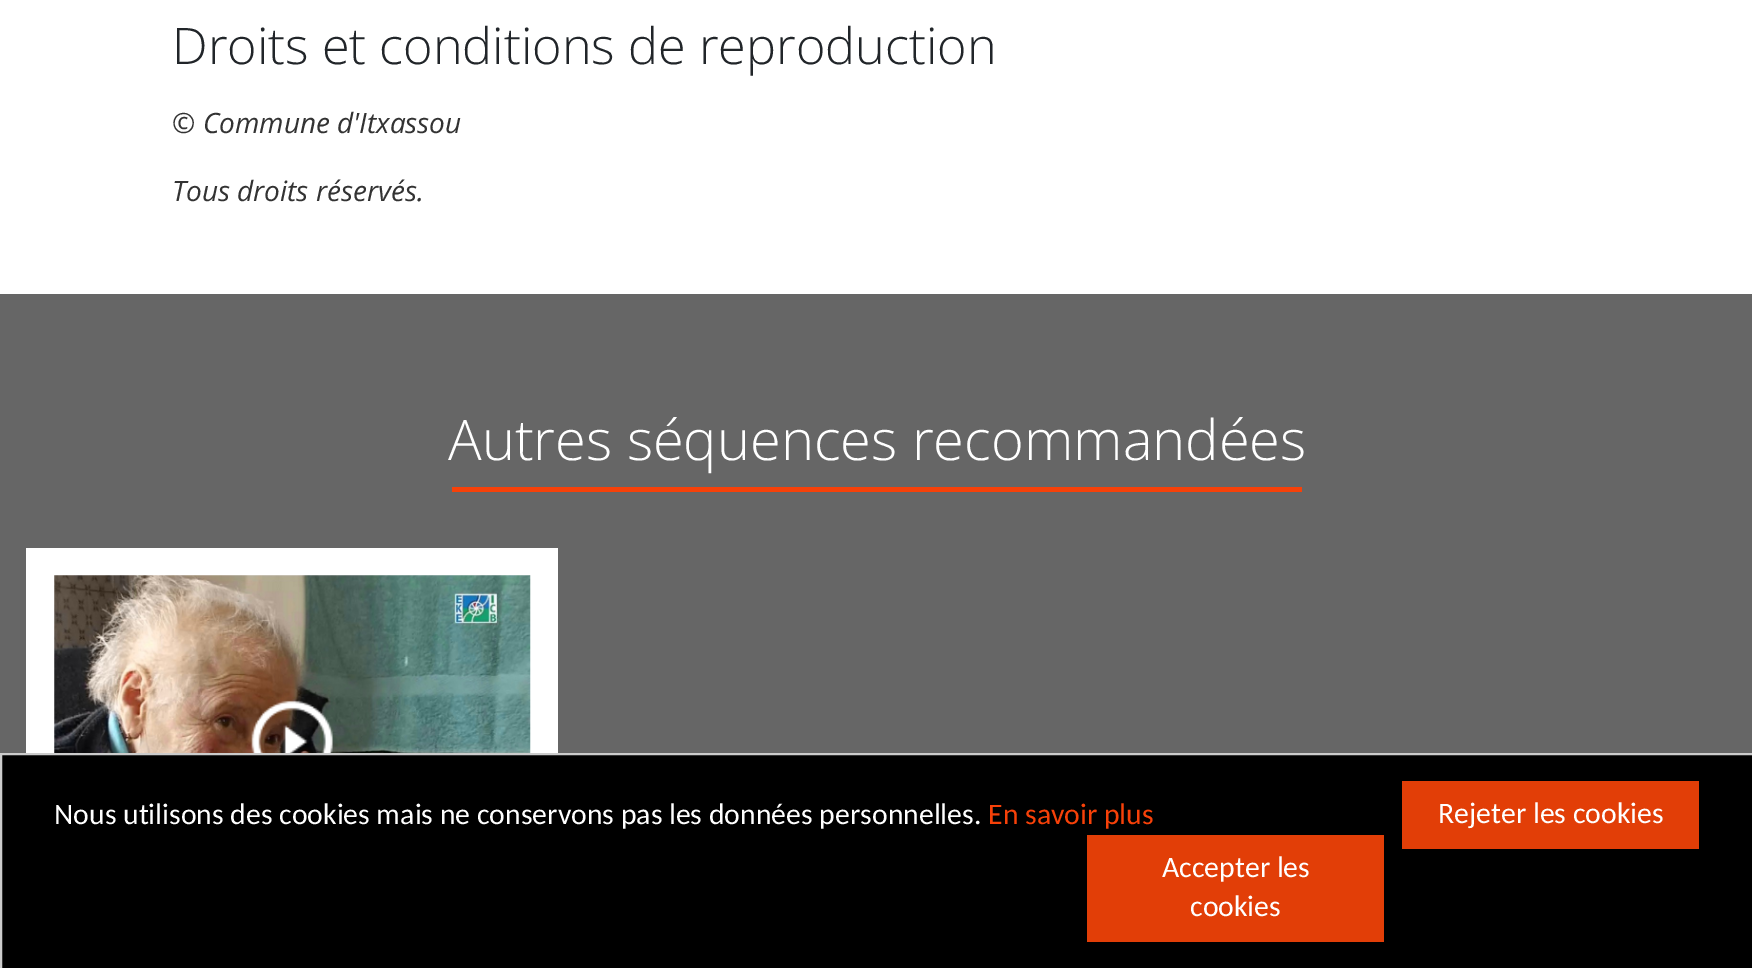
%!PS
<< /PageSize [1752 968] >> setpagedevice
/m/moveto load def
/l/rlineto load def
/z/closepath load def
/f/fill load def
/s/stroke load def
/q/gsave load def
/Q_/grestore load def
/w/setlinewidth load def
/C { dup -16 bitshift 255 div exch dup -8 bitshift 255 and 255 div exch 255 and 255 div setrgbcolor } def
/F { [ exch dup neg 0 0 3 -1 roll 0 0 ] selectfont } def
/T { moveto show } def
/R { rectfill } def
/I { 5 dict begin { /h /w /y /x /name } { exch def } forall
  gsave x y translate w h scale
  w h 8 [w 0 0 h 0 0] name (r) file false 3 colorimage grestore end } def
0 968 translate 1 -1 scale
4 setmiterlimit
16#FFFFFF C
0 0 1752 968 R
/OpenSans-Light 50.4 F
16#212529 C
(Droits et conditions de reproduction) 172 64 T
/OpenSans-Italic 28 F
16#333333 C
(© Commune d'Itxassou) 172 133 T
(Tous droits réservés.) 172 201 T
16#666666 C
0 294 1752 459 R
/OpenSans-Light 56 F
16#FFFFFF C
(Autres séquences recommandées) 448 460 T
16#F74109 C
452 487 850 5 R
16#FFFFFF C
26 548 532 205 R
(1.rgb) 54 575 477 178 I
(2.rgb) 251 700 82 53 I
16#000000 C
1 754 m 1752 0 l 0 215 l -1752 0 l z q f Q_
16#CCCCCC C
2 w
s
/Carlito-Regular 29.75 F
16#FFFFFF C
(Nous utilisons des cookies mais ne conservons pas les données personnelles.) 54 824 T
16#F74109 C
(En savoir plus) 988 824 T
16#E23E07 C
1402 781 297 68 R
16#FFFFFF C
(Rejeter les cookies) 1438 823 T
16#E23E07 C
1087 835 297 107 R
16#FFFFFF C
(Accepter les) 1162 877 T
(cookies) 1190 916 T
showpage
